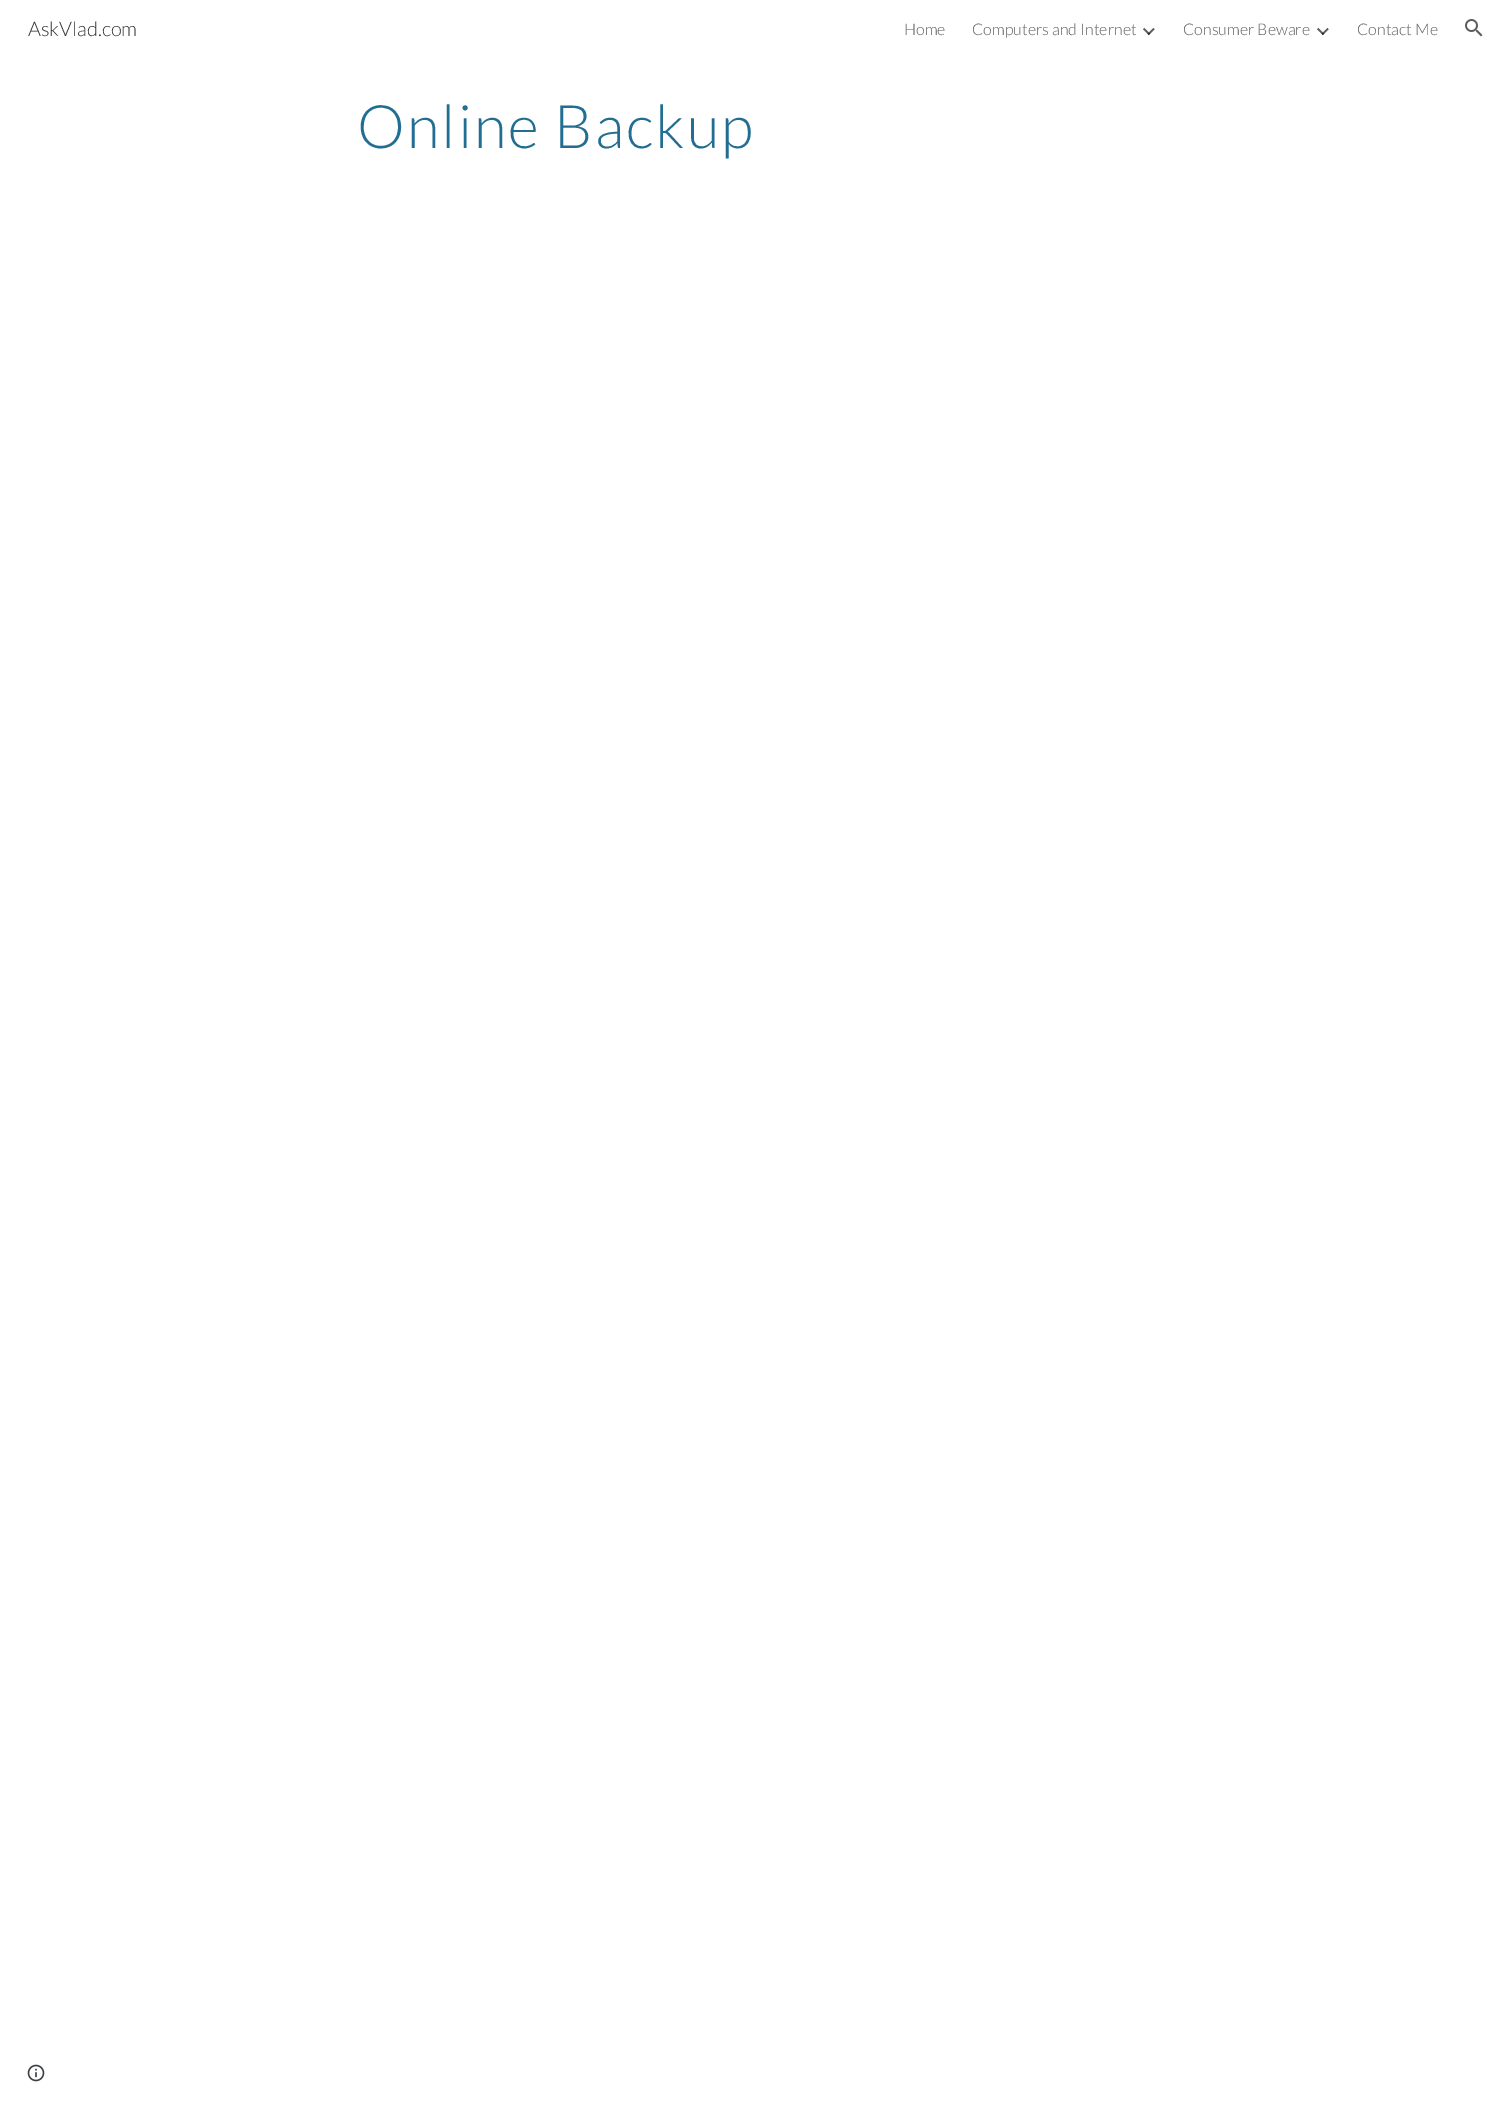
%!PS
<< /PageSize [1498 2107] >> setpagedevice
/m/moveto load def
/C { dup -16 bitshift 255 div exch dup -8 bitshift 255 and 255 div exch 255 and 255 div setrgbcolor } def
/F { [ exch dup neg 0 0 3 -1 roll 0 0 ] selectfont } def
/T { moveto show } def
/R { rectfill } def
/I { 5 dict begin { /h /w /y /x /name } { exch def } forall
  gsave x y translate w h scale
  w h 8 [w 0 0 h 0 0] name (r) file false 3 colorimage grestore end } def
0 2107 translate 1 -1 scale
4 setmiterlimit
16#FFFFFF C
0 0 1498 2107 R
/Lato-Light 20 F
16#333333 C
(AskVlad.com) 28 36 T
/Lato-Light 16 F
16#5C5C5C C
(Home) 904 35 T
(Computers and Internet) 972 35 T
(1.rgb) 1143 27 12 9 I
(Consumer Beware) 1183 35 T
(2.rgb) 1317 27 12 9 I
(Contact Me) 1357 35 T
(3.rgb) 1465 19 18 18 I
/Lato-Light 60 F
16#226E93 C
357 148 m 2 0 (Online Backup) ashow
(4.rgb) 27 2064 18 18 I
showpage
